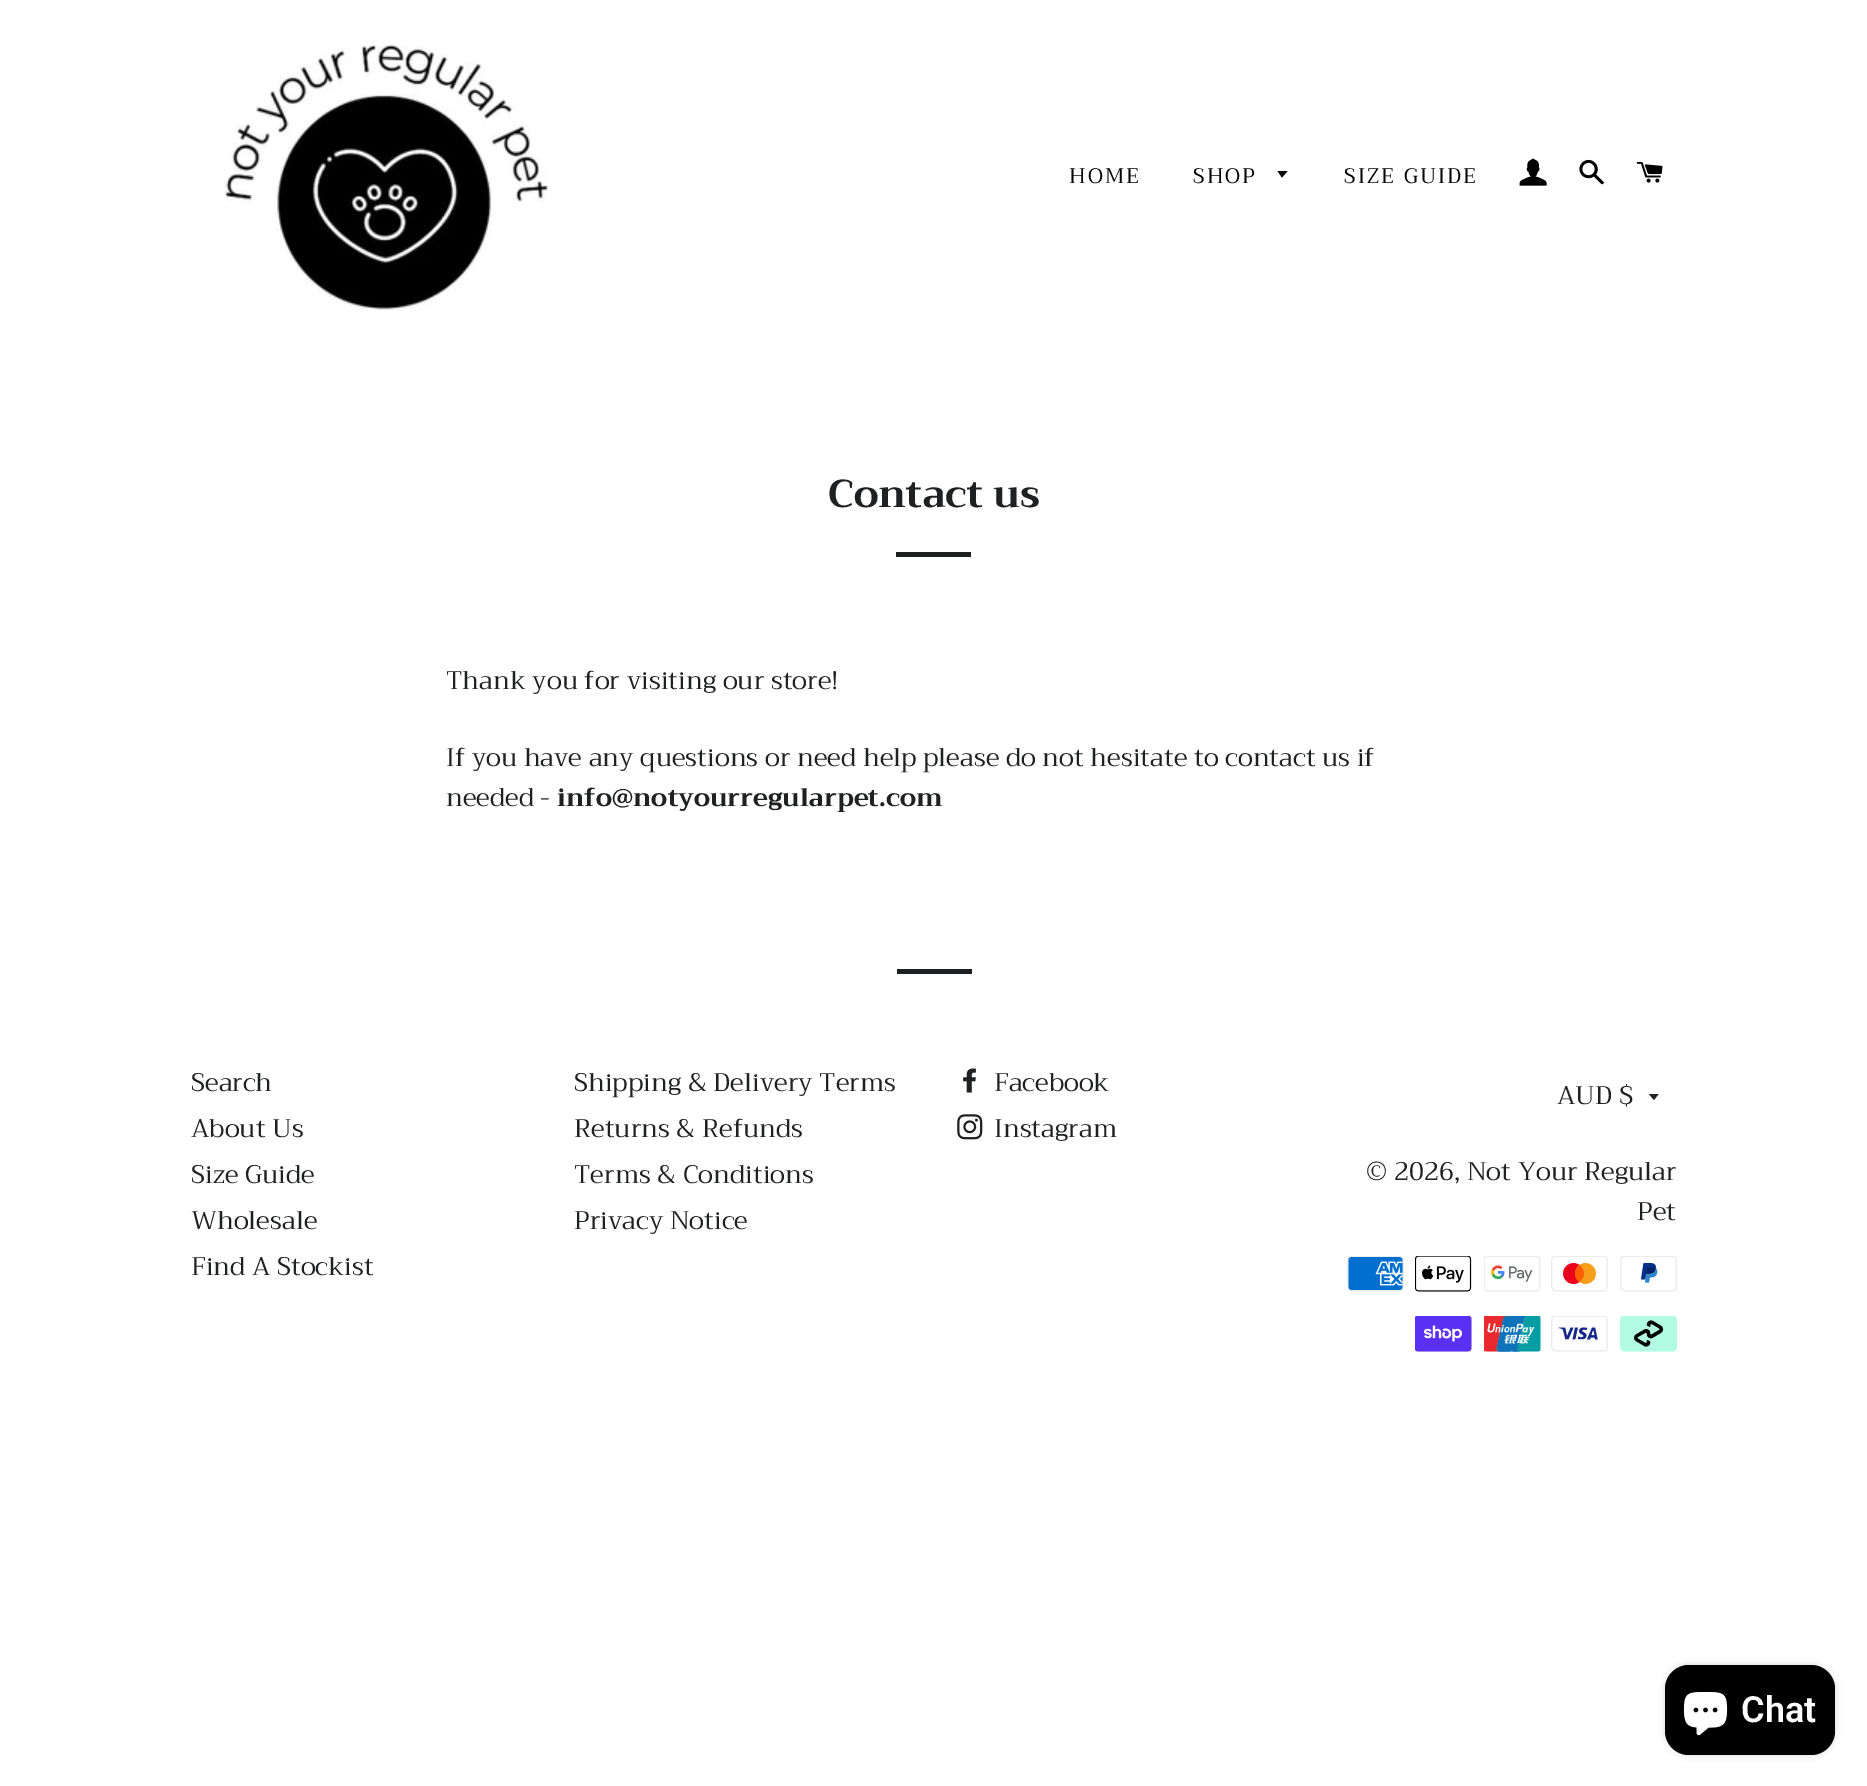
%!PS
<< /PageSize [1867 1786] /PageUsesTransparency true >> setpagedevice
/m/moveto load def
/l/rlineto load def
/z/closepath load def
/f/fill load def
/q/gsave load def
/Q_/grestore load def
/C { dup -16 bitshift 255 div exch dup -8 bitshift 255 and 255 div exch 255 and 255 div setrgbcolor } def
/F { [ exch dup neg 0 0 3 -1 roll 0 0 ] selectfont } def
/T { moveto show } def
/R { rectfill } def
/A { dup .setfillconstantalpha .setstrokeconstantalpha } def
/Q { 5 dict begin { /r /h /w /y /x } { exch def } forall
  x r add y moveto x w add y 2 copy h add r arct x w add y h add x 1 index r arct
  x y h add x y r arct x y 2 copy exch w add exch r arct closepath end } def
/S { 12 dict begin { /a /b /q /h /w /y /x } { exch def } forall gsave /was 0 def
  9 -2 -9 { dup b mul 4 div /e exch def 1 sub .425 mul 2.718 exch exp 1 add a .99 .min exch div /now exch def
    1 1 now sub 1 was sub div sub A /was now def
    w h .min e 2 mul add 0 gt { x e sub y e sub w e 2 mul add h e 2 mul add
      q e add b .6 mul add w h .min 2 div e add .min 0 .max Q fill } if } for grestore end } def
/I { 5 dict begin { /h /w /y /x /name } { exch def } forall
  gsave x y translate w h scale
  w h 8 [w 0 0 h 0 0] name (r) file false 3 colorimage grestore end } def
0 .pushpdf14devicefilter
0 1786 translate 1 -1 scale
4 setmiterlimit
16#FFFFFF C
0 0 1867 1786 R
(1.rgb) 223 44 325 266 I
/Trirong-Regular 21 F
16#000000 C
1069 183 m 2.1 0 (HOME) ashow
1193 183 m 2.1 0 (SHOP) ashow
1277.5 171 m 4.5 6.5 l 5.5 -6.5 l z f
1344 183 m 2.1 0 (SIZE GUIDE) ashow
(2.rgb) 1519 158 28 28 I
(3.rgb) 1579 159 25 26 I
(4.rgb) 1636 161 27 22 I
/Trirong-Bold 39 F
16#1F2021 C
(Contact us) 828 507 T
896 552 75 5 R
/Trirong-Regular 25.5 F
(Thank you for visiting our store!) 446 689 T
(If you have any questions or need help please do not hesitate to contact us if) 446 766 T
(needed -) 446 806 T
/Trirong-Bold 25.5 F
(info@notyourregularpet.com) 557 806 T
897 969 75 5 R
/Trirong-Regular 25.5 F
(Search) 191 1091 T
(About Us) 191 1137 T
(Size Guide) 191 1183 T
(Wholesale) 191 1229 T
(Find A Stockist) 191 1275 T
(Shipping & Delivery Terms) 574 1091 T
(Returns & Refunds) 574 1137 T
(Terms & Conditions) 574 1183 T
(Privacy Notice) 574 1229 T
(5.rgb) 963 1068 13 25 I
(Facebook) 994 1091 T
(6.rgb) 957 1114 26 26 I
(Instagram) 994 1137 T
q
1649 1094 12 7 rectclip
1648.5 1093.5 m 5.5 6.5 l 5 -6.5 l z f
Q_
(AUD $) 1557 1104 T
(© 2026, Not Your Regular) 1366 1180 T
(Pet) 1637 1220 T
(7.rgb) 1347 1256 57 36 I
(8.rgb) 1415 1256 57 36 I
(9.rgb) 1484 1256 57 36 I
(10.rgb) 1551 1256 57 36 I
(11.rgb) 1620 1256 57 36 I
(12.rgb) 1415 1316 57 36 I
(13.rgb) 1484 1316 57 36 I
(14.rgb) 1551 1316 57 36 I
(15.rgb) 1620 1316 57 36 I
16#000000 C
1665 1665 170 90 24 4 .15 S
1665 1665 170 90 24 Q f
(16.rgb) 1683 1692 45 44 I
/Roboto-SemiBold 36 F
16#FFFFFF C
(Chat) 1741 1722 T
.poppdf14devicefilter showpage
